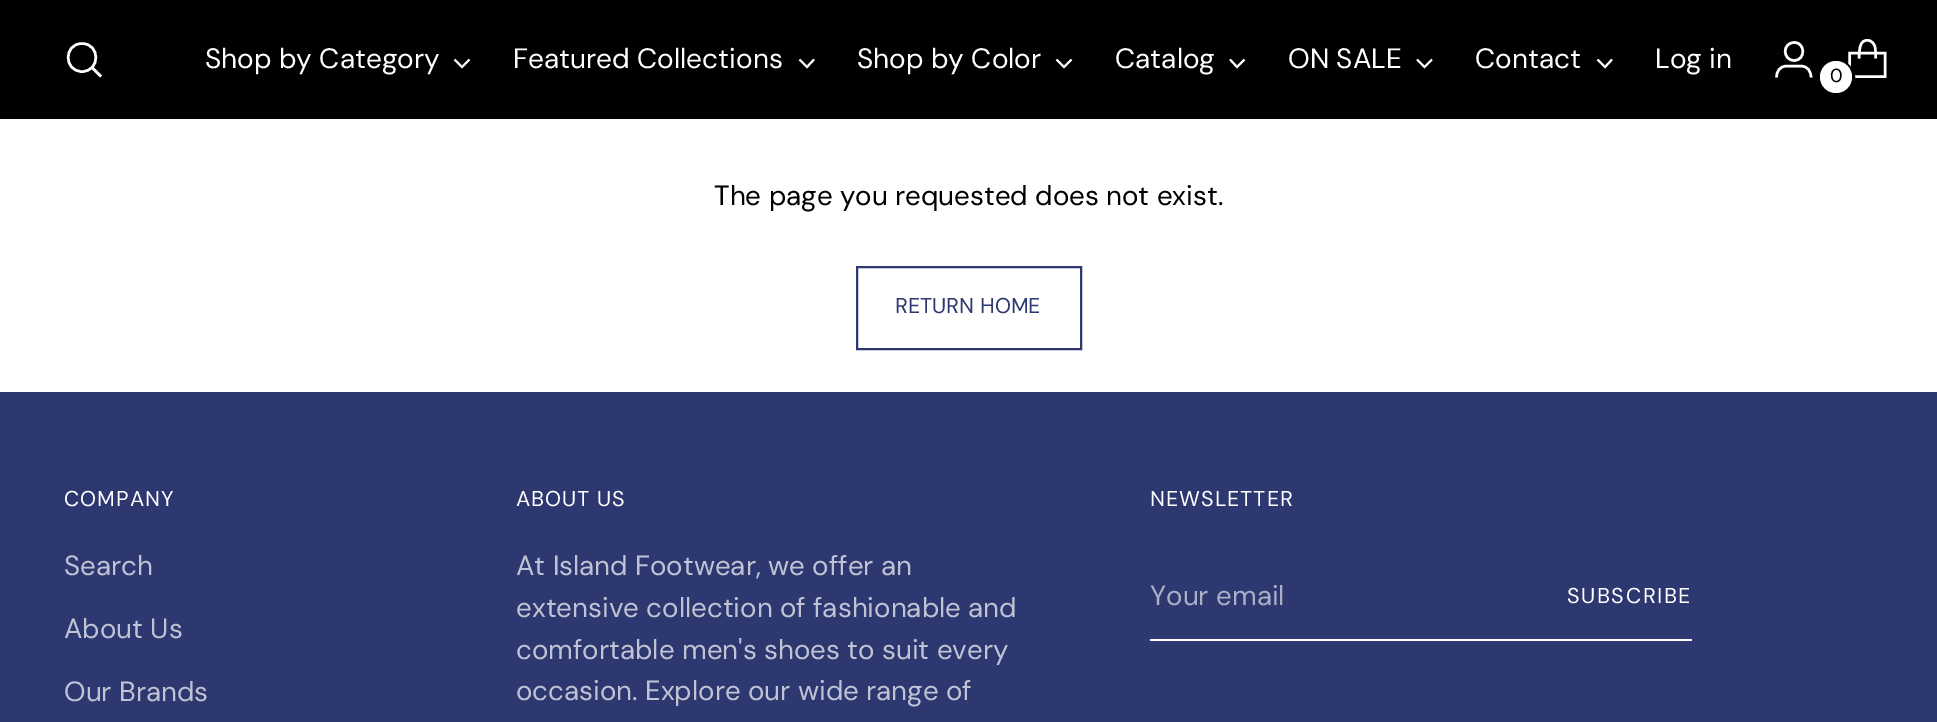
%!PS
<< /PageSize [1937 722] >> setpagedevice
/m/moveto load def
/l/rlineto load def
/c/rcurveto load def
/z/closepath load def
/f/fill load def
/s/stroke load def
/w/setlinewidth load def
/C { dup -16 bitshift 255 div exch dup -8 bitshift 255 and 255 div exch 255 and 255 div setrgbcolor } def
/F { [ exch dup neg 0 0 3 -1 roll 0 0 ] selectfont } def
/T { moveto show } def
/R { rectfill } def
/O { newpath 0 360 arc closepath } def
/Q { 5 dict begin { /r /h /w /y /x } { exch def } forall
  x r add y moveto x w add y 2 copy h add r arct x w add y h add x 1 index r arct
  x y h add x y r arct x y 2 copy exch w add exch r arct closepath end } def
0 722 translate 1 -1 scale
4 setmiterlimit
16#FFFFFF C
0 0 1937 722 R
16#000000 C
0 0 1937 119 R
16#FFFFFF C
2.5 w
1 setlinecap
82 71.5 m 18.5 0 18.5 -28 0 -28 c -18.5 0 -18.5 28 0 28 c z s
0 setlinecap
92 67.5 m 9 9 l s
/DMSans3-Regular 28 F
(Shop by Category) 205 68 T
2 w
454.5 59.5 m 7.5 7.5 l 7.5 -7.5 l s
(Featured Collections) 513 68 T
799.5 59.5 m 7.5 7.5 l 7 -7.5 l s
(Shop by Color) 857 68 T
1056.5 59.5 m 7.5 7.5 l 7.5 -7.5 l s
(Catalog) 1115 68 T
1230 59.5 m 7 7.5 l 7.5 -7.5 l s
(ON SALE) 1288 68 T
1417 59.5 m 7.5 7.5 l 7.5 -7.5 l s
(Contact) 1475 68 T
1597.5 59.5 m 7.5 7.5 l 7 -7.5 l s
(Log in) 1655 68 T
2.5 w
1794 60.5 m 12 0 11.5 -18.5 0 -18 c -12 .5 -11.5 17.5 0 18 c z 1776.5 77.5 m 0 -6 3 -11.5 10.5 -11.5 c 13.5 0 l 7.5 0 10.5 5.5 10.5 11.5 c s
2 setlinejoin
1875.5 58.5 m 0 -4.5 .5 -9 -1 -13 c -1 -2.5 -3 -4.5 -5.5 -5 c -10.5 -2 -9.5 11.5 -10 18 c s
0 setlinejoin
1885 76.5 m 0 -23.5 l -35.5 0 l 0 23.5 l z s
16#000000 C
3 w
1819.5 61.5 34 33 16.5 Q s
16#FFFFFF C
1836 77 16 O f
/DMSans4-Regular 19 F
16#000000 C
(0) 1830 82 T
/DMSans-Regular 27.75 F
(The page you requested does not exist.) 714 205 T
16#2C386F C
2 w
857 267 224 82 rectstroke
/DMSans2-Regular 21.5 F
(RETURN HOME) 895 313 T
0 392 1937 330 R
16#FFFFFF C
64 506 m 1 0 (COMPANY) ashow
/DMSans-Regular 27.75 F
16#C0C3D4 C
(Search) 64 575 T
(About Us) 64 638 T
(Our Brands) 64 701 T
/DMSans2-Regular 21.5 F
16#FFFFFF C
516 506 m 1 0 (ABOUT US) ashow
/DMSans-Regular 27.75 F
16#C0C3D4 C
(At Island Footwear, we offer an) 516 575 T
(extensive collection of fashionable and) 516 617 T
(comfortable men's shoes to suit every) 516 659 T
(occasion. Explore our wide range of) 516 700 T
/DMSans2-Regular 21.5 F
16#FFFFFF C
1150 506 m 1 0 (NEWSLETTER) ashow
1150 639 542 2 R
/DMSans-Regular 27.75 F
16#ABAFC5 C
(Your email) 1150 605 T
/DMSans2-Regular 21.5 F
16#FFFFFF C
1567 603 m 1.6 0 (SUBSCRIBE) ashow
showpage
